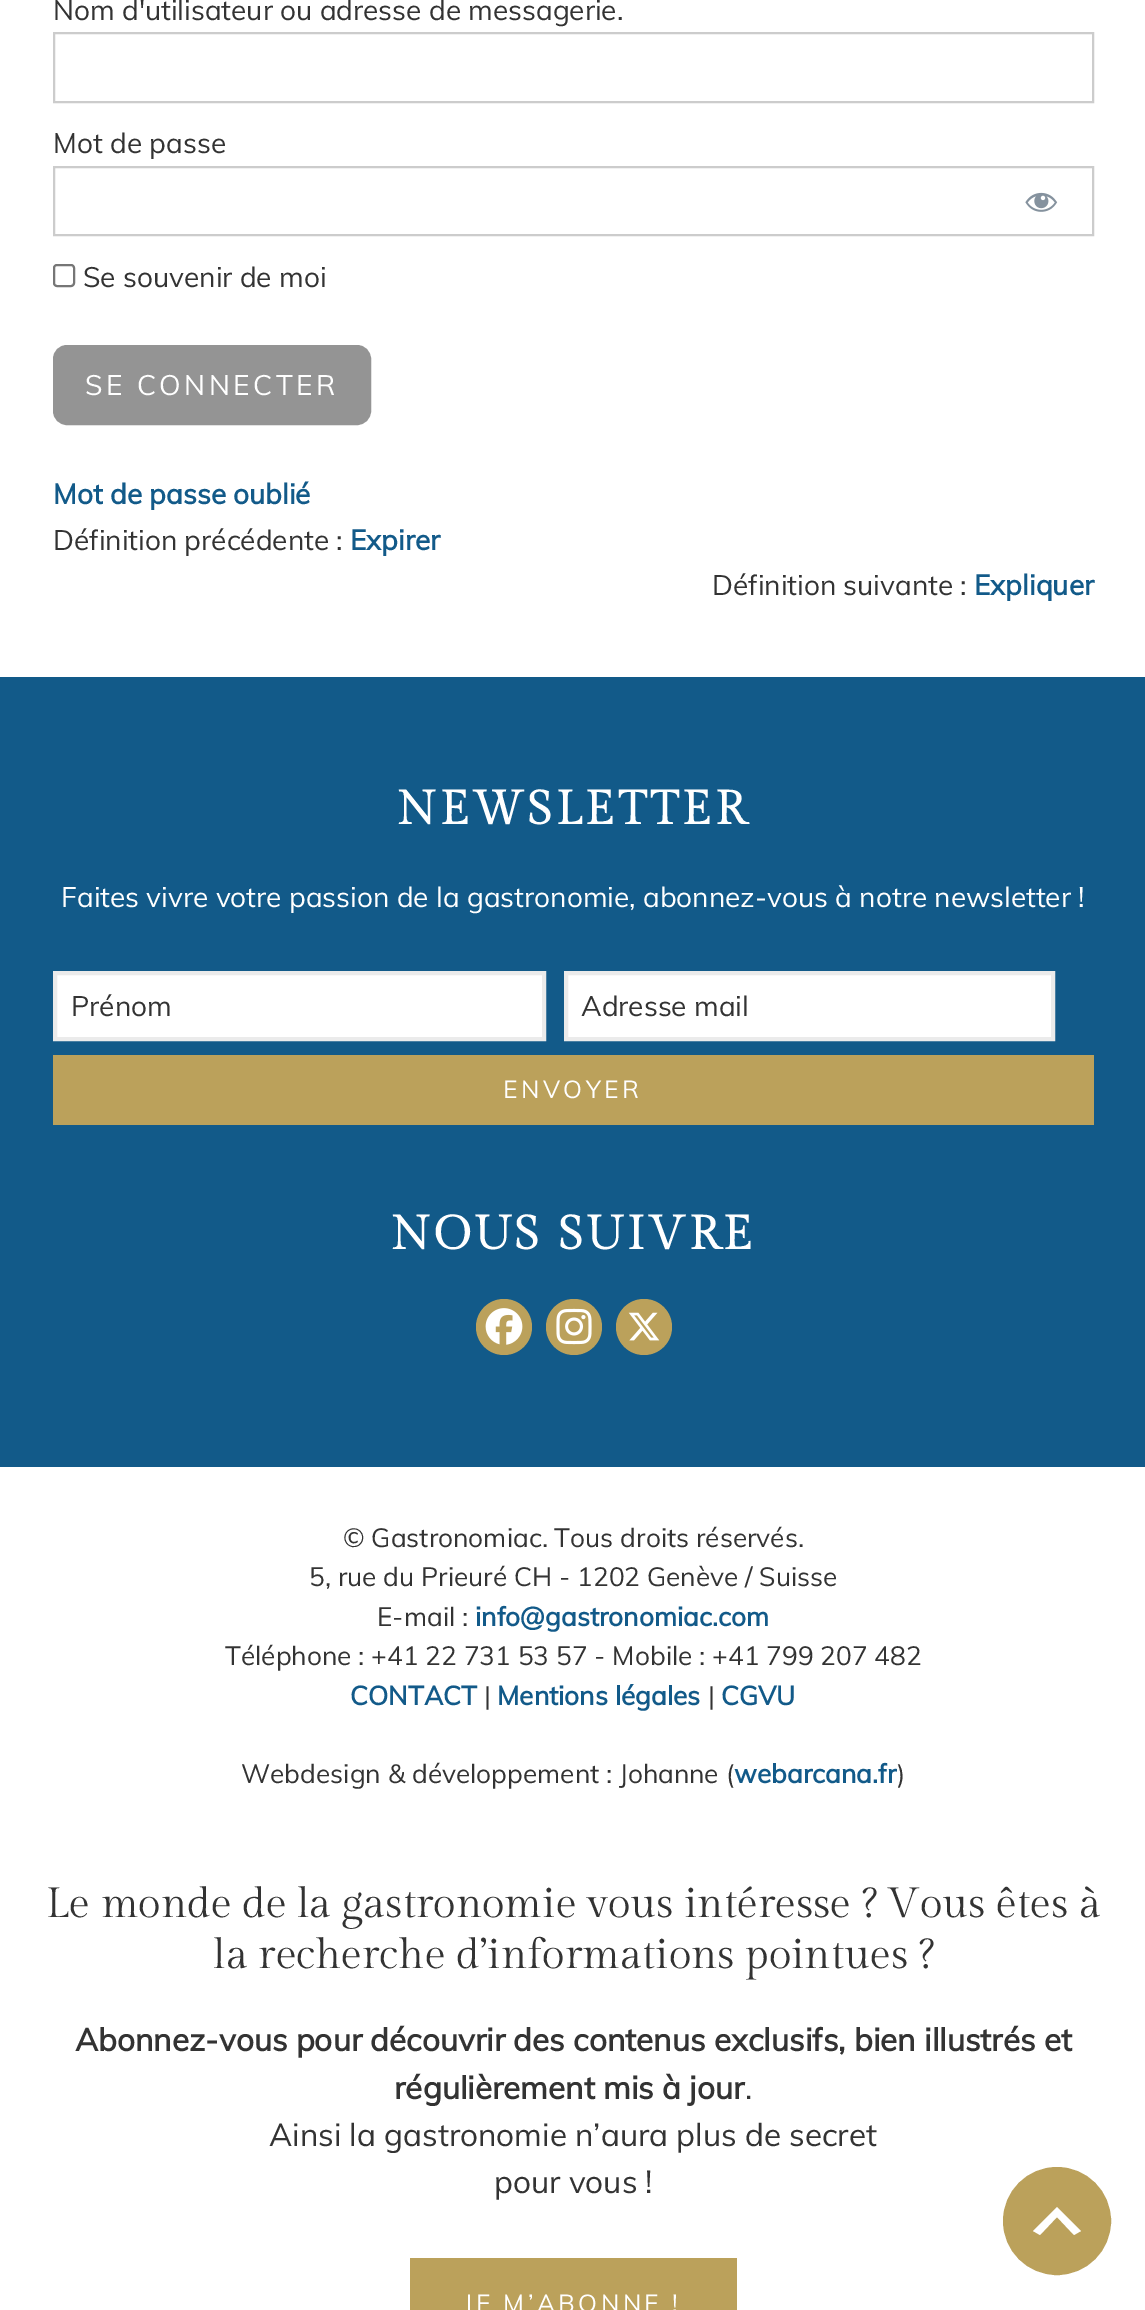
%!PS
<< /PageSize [1145 2310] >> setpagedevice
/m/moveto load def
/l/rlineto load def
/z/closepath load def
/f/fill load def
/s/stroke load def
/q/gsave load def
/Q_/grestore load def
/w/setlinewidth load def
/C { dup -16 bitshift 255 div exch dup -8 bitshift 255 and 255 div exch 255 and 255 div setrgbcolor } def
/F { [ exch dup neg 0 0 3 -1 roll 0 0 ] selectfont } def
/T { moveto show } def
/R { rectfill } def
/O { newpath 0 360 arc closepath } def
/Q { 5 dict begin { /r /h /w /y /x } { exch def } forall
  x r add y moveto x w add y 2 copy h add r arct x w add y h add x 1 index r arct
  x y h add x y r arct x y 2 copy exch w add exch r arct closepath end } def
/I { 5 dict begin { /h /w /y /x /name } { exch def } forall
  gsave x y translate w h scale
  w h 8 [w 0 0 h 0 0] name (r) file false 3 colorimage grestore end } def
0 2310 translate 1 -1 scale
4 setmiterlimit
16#FFFFFF C
0 0 1145 2310 R
/Muli-Regular 28 F
16#333333 C
(Nom d'utilisateur ou adresse de messagerie.) 53 20 T
16#CCCCCC C
2 w
54 33 1039 69 rectstroke
16#333333 C
(Mot de passe) 53 153 T
16#CCCCCC C
54 167 1039 68 rectstroke
(1.rgb) 1025 192 33 20 I
16#767676 C
54 265 20 21 3 Q s
16#333333 C
(Se souvenir de moi) 83 287 T
16#949494 C
54 346 316 78 13 Q q f Q_
s
16#FFFFFF C
85 395 m 3.5 0 (SE CONNECTER) ashow
/Muli-Bold 28 F
16#125A89 C
(Mot de passe oublié) 53 504 T
/Muli-Regular 28 F
16#333333 C
(Définition précédente :) 53 550 T
/Muli-Bold 28 F
16#125A89 C
(Expirer) 350 550 T
/Muli-Regular 28 F
16#333333 C
(Définition suivante :) 712 595 T
/Muli-Bold 28 F
16#125A89 C
(Expliquer) 974 595 T
0 677 1145 790 R
/GildaDisplay-Bold 47.25 F
16#FFFFFF C
397 824 m 3.5 0 (NEWSLETTER) ashow
/Muli-Regular 28 F
(Faites vivre votre passion de la gastronomie, abonnez-vous à notre newsletter !) 61 907 T
55 973 m 489 0 l 0 66 l -489 0 l z q f Q_
16#EBEBEB C
4 w
s
16#333333 C
(Prénom) 71 1016 T
16#FFFFFF C
566 973 m 487 0 l 0 66 l -487 0 l z q f Q_
16#EBEBEB C
s
16#333333 C
(Adresse mail) 581 1016 T
16#BBA15B C
53 1055 1041 70 R
/Muli-Regular 24.5 F
16#FFFFFF C
503 1098 m 3.5 0 (ENVOYER) ashow
/GildaDisplay-Bold 47.25 F
391 1249 m 3.5 0 (NOUS SUIVRE) ashow
16#BBA15B C
504 1327 28 O f
(2.rgb) 485 1308 38 37 I
574 1327 28 O f
(3.rgb) 556 1308 36 37 I
644 1327 28 O f
(4.rgb) 628 1312 32 29 I
/Muli-Regular 26.25 F
16#333333 C
(© Gastronomiac. Tous droits réservés.) 343 1547 T
(5, rue du Prieuré CH - 1202 Genève / Suisse) 309 1586 T
(E-mail :) 377 1626 T
/Muli-Bold 26.25 F
16#125A89 C
(info@gastronomiac.com) 475 1626 T
/Muli-Regular 26.25 F
16#333333 C
(Téléphone : +41 22 731 53 57 - Mobile : +41 799 207 482) 225 1665 T
/Muli-Bold 26.25 F
16#125A89 C
(CONTACT) 350 1705 T
/Muli-Regular 26.25 F
16#333333 C
(|) 484 1705 T
/Muli-Bold 26.25 F
16#125A89 C
(Mentions légales) 497 1705 T
/Muli-Regular 26.25 F
16#333333 C
(|) 708 1705 T
/Muli-Bold 26.25 F
16#125A89 C
(CGVU) 721 1705 T
/Muli-Regular 26.25 F
16#333333 C
(Webdesign & développement : Johanne \() 241 1783 T
/Muli-Bold 26.25 F
16#125A89 C
(webarcana.fr) 734 1783 T
/Muli-Regular 26.25 F
16#333333 C
(\)) 897 1783 T
16#BBA15B C
1057 2221 53 O q f Q_
2 w
s
16#FFFFFF C
1074 2235 m -17 -18 l -17 18 l -7 -4 l 24 -24 l 24 24 l z f
/GildaDisplay-Regular 42 F
16#333333 C
(Le monde de la gastronomie vous intéresse ? Vous êtes à) 46 1917 T
(la recherche d’informations pointues ?) 213 1968 T
/Muli-Bold 31.5 F
(Abonnez-vous pour découvrir des contenus exclusifs, bien illustrés et) 75 2051 T
(régulièrement mis à jour) 394 2099 T
/Muli-Regular 31.5 F
(.) 745 2099 T
(Ainsi la gastronomie n’aura plus de secret) 269 2146 T
(pour vous !) 494 2193 T
16#BBA15B C
410 2258 327 52 R
/Muli-Regular 24.5 F
16#FFFFFF C
464 2312 m 3.5 0 (JE M’ABONNE !) ashow
showpage
